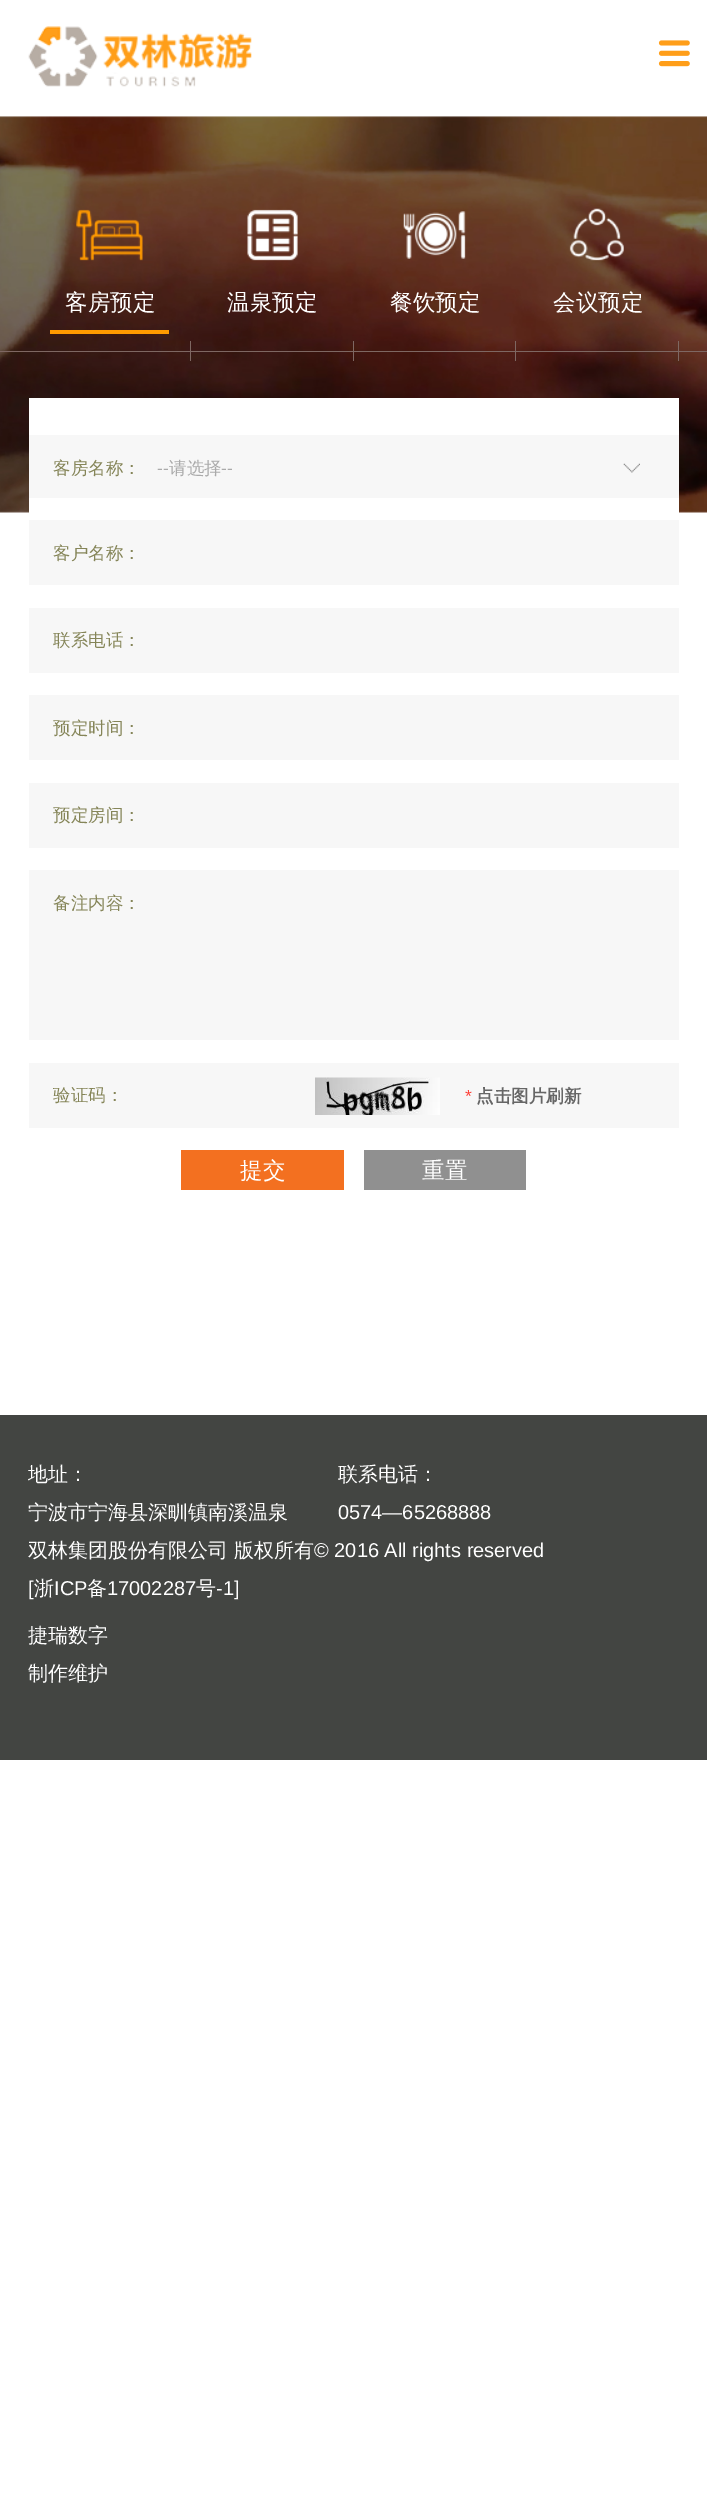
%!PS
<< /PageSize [707 2509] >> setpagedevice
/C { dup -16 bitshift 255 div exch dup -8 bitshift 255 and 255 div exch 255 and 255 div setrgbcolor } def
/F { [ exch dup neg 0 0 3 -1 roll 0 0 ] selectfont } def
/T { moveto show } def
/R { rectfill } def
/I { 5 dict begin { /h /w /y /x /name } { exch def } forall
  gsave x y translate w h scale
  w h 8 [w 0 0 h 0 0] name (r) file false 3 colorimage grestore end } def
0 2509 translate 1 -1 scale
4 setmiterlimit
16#FFFFFF C
0 0 707 2509 R
(1.rgb) 28 26 224 61 I
(2.rgb) 658 40 32 27 I
(3.rgb) 0 116 707 397 I
16#7E6762 C
0 351 707 1 R
(4.rgb) 76 209 67 52 I
/WenQuanYiZenHei-Medium 22.5 F
16#FFFFFF C
(客房预定) 65 310 T
16#FF9A00 C
50 330 119 4 R
16#7E6762 C
190 341 1 20 R
(5.rgb) 247 209 51 52 I
16#FFFFFF C
(温泉预定) 227 310 T
16#7E6762 C
353 341 1 20 R
(6.rgb) 403 211 63 48 I
16#FFFFFF C
(餐饮预定) 390 310 T
16#7E6762 C
515 341 1 20 R
(7.rgb) 569 208 55 53 I
16#FFFFFF C
(会议预定) 553 310 T
16#7E6762 C
678 341 1 20 R
16#FFFFFF C
29 398 650 115 R
16#F7F7F7 C
29 435 650 63 R
/WenQuanYiZenHei-Medium 17.5 F
16#858558 C
(客房名称：) 53 474 T
/LiberationSans-Regular 17.5 F
16#AAAAAA C
(--) 157 474 T
/WenQuanYiZenHei-Medium 17.5 F
(请选择) 169 474 T
/LiberationSans-Regular 17.5 F
(--) 221 474 T
(8.rgb) 623 463 17 10 I
16#F7F7F7 C
29 520 650 65 R
/WenQuanYiZenHei-Medium 17.5 F
16#858558 C
(客户名称：) 53 559 T
16#F7F7F7 C
29 608 650 65 R
16#858558 C
(联系电话：) 53 646 T
16#F7F7F7 C
29 695 650 65 R
16#858558 C
(预定时间：) 53 734 T
16#F7F7F7 C
29 783 650 65 R
16#858558 C
(预定房间：) 53 821 T
16#F7F7F7 C
29 870 650 170 R
16#858558 C
(备注内容：) 53 909 T
16#F7F7F7 C
29 1063 650 65 R
16#858558 C
(验证码：) 53 1101 T
(9.rgb) 315 1077 125 38 I
/LiberationSans-Regular 17.5 F
16#FE453D C
(*) 465 1102 T
/WenQuanYiZenHei-Bold 17.5 F
16#666666 C
(点击图片刷新) 476 1102 T
16#F37020 C
181 1150 163 40 R
/WenQuanYiZenHei-Medium 22.5 F
16#FFFFFF C
(提交) 240 1178 T
16#909090 C
364 1150 162 40 R
16#FFFFFF C
(重置) 422 1178 T
16#434542 C
0 1415 707 345 R
/WenQuanYiZenHei-Medium 20 F
16#FFFFFF C
(地址：) 28 1481 T
(宁波市宁海县深甽镇南溪温泉) 28 1519 T
(联系电话：) 338 1481 T
/LiberationSans-Regular 20 F
(0574—65268888) 338 1519 T
/WenQuanYiZenHei-Medium 20 F
(双林集团股份有限公司) 28 1557 T
(版权所有) 234 1557 T
/LiberationSans-Regular 20 F
(© 2016 All rights reserved) 314 1557 T
([) 28 1595 T
/WenQuanYiZenHei-Medium 20 F
(浙) 34 1595 T
/LiberationSans-Regular 20 F
(ICP) 54 1595 T
/WenQuanYiZenHei-Medium 20 F
(备) 87 1595 T
/LiberationSans-Regular 20 F
(17002287) 107 1595 T
/WenQuanYiZenHei-Medium 20 F
(号) 196 1595 T
/LiberationSans-Regular 20 F
(-1]) 216 1595 T
/WenQuanYiZenHei-Medium 20 F
(捷瑞数字) 28 1642 T
(制作维护) 28 1680 T
showpage
